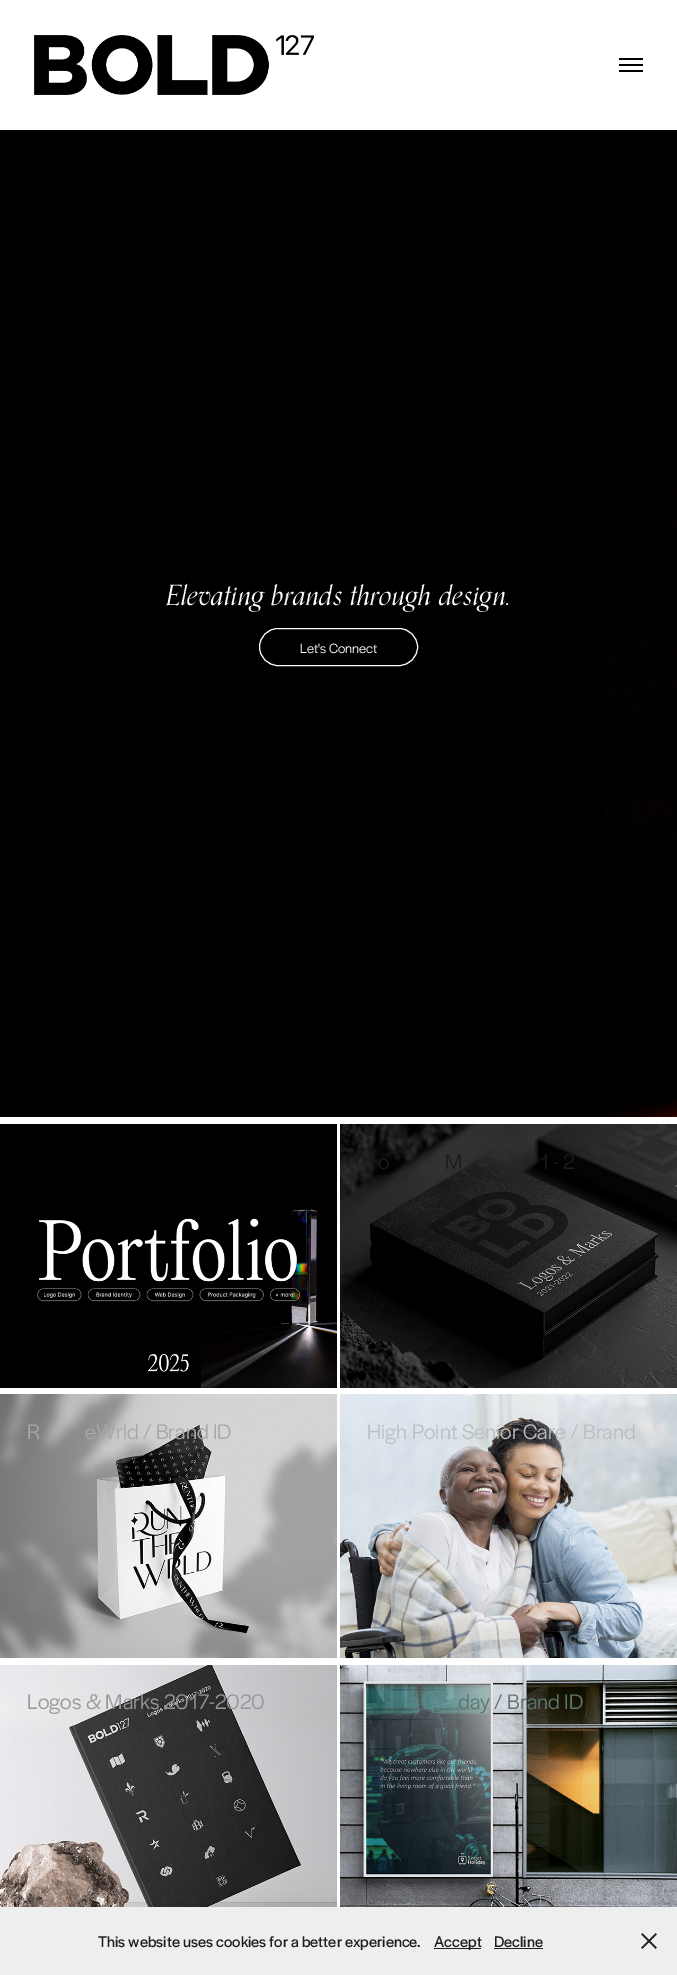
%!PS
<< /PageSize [677 1975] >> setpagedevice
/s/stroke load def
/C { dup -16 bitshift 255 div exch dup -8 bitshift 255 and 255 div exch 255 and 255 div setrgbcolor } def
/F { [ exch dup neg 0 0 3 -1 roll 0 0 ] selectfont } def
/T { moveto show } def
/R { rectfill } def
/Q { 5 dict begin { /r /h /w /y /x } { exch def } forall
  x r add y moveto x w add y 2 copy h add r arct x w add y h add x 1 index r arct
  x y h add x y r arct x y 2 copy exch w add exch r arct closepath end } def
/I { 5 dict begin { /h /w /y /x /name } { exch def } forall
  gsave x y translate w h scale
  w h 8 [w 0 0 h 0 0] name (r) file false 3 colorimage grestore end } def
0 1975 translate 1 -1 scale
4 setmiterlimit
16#FFFFFF C
0 0 677 1975 R
(1.rgb) 34 35 280 60 I
16#000000 C
619 58 24 2 R
619 64 24 2 R
619 70 24 2 R
0 130 677 987 R
(2.rgb) 603 414 74 703 I
/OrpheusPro-Italic 28 F
16#FFFFFF C
(Elevating brands through design.) 166 605 T
259.5 628.5 158 37 18.5 Q s
/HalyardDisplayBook-Regular 14 F
(Let's Connect) 300 653 T
(3.rgb) 0 1124 337 264 I
(4.rgb) 340 1124 337 264 I
/HalyardDisplayBook-Regular 22 F
16#1C1D1E C
(o) 378 1169 T
(M) 445 1169 T
(1 - 2) 540 1169 T
(5.rgb) 0 1394 337 264 I
16#A8A8A8 C
(R) 27 1439 T
(eWrld / Brand ID) 85 1439 T
(6.rgb) 340 1394 337 264 I
16#BABFC4 C
(High Point Senior Care / Brand) 367 1439 T
(7.rgb) 0 1665 337 242 I
16#989799 C
(Logos & Marks 2017-2020) 27 1709 T
(8.rgb) 340 1665 337 242 I
16#5D7672 C
(day / Brand ID) 458 1709 T
16#EDEEEE C
0 1907 677 68 R
/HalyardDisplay-Regular 16 F
16#1C1D1E C
(This website uses cookies for a better experience.) 98 1947 T
16#212121 C
434 1948 47 1 R
16#1C1D1E C
(Accept) 434 1947 T
(Decline) 494 1947 T
16#212121 C
494 1948 49 1 R
(9.rgb) 641 1933 16 16 I
showpage
